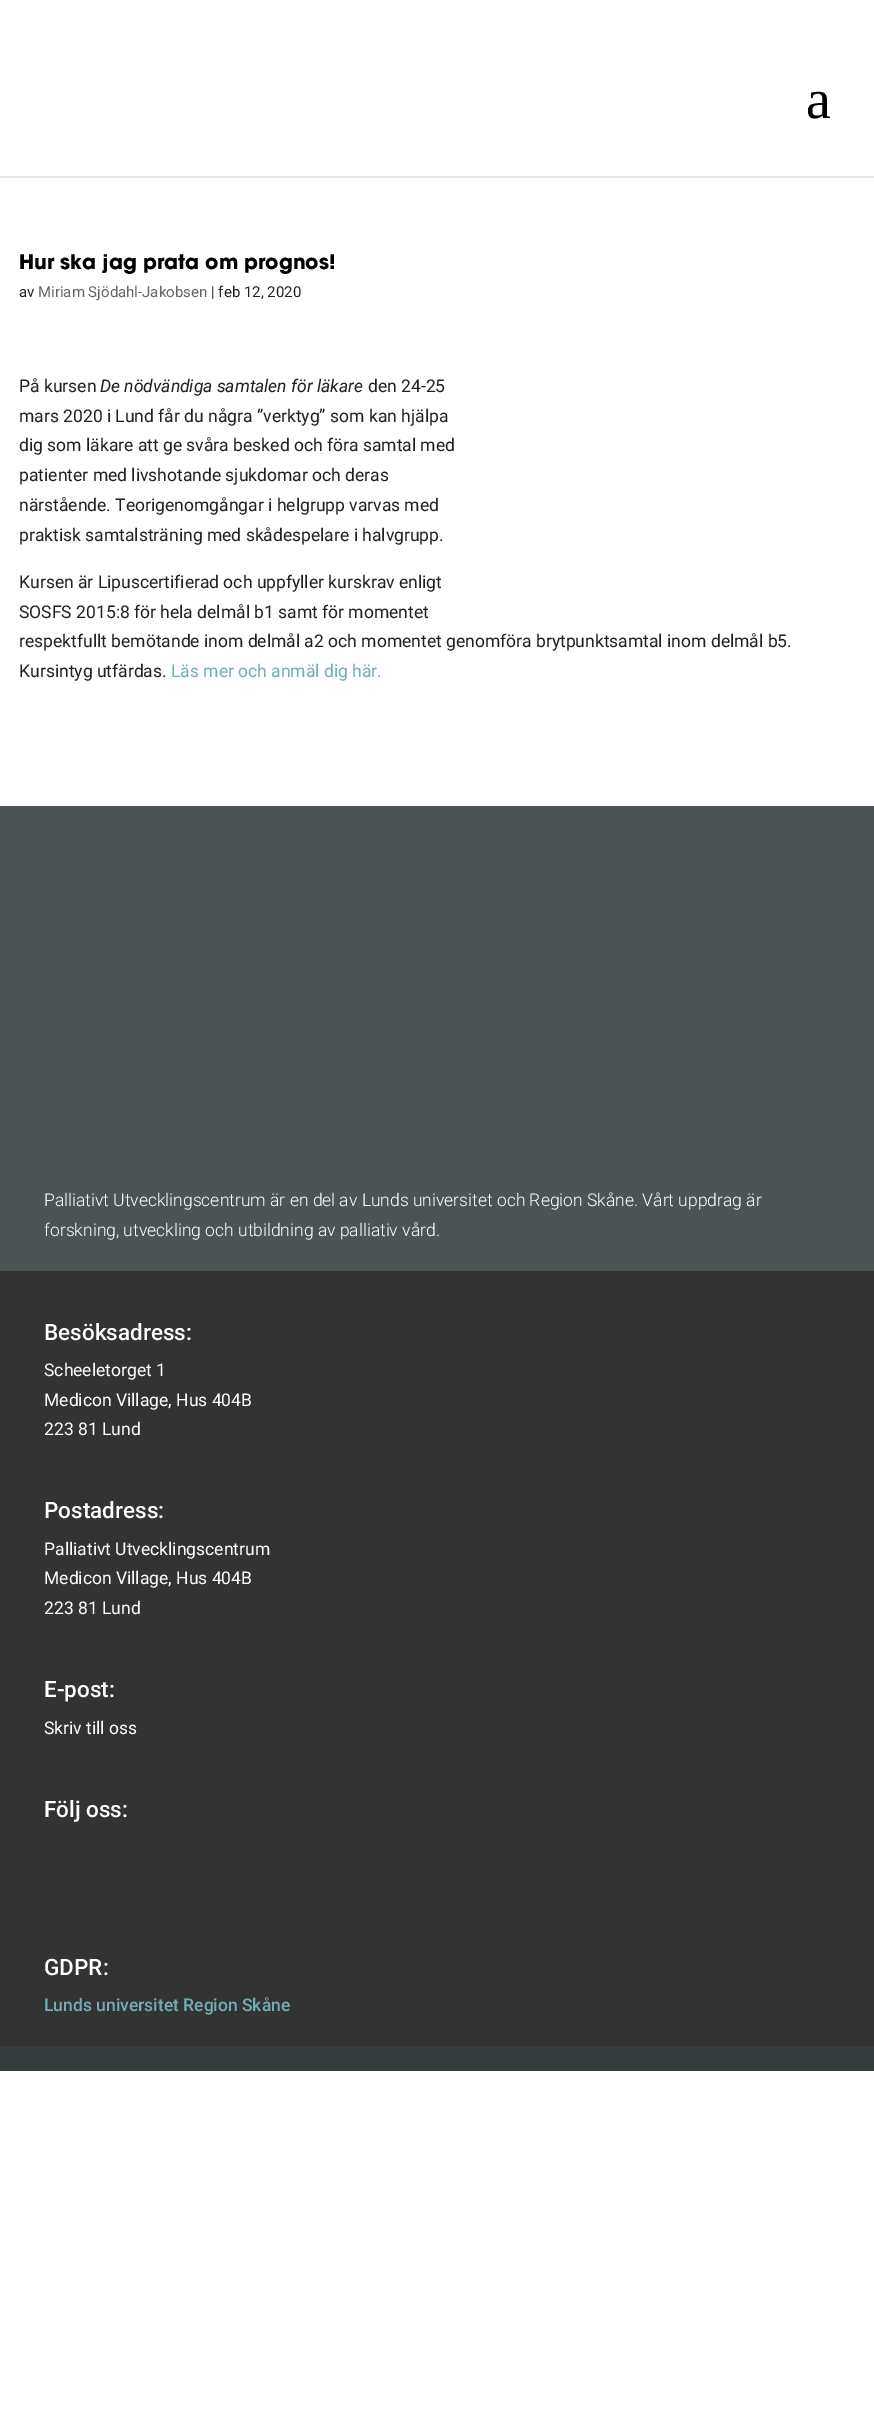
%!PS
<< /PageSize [874 2409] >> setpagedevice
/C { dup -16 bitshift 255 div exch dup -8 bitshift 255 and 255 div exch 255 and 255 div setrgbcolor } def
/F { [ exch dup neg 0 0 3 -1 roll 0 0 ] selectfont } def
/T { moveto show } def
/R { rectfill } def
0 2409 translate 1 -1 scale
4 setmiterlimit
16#FFFFFF C
0 0 874 2409 R
16#E6E6E6 C
0 176 874 2 R
/LiberationSerif-Regular 56 F
16#000000 C
(a) 806 118 T
/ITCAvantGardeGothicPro-Bold 20 F
(Hur ska jag prata om prognos!) 19 269 T
/Roboto-Regular 15 F
16#212121 C
(av) 19 297 T
16#666666 C
(Miriam Sjödahl-Jakobsen) 38 297 T
16#212121 C
(| feb 12, 2020) 211 297 T
/Roboto-Regular 17.5 F
(På kursen) 19 392 T
/Roboto-Italic 17.5 F
(De nödvändiga samtalen för läkare) 100 392 T
/Roboto-Regular 17.5 F
(den 24-25) 368 392 T
(mars 2020 i Lund får du några ”verktyg” som kan hjälpa) 19 422 T
(dig som läkare att ge svåra besked och föra samtal med) 19 451 T
(patienter med livshotande sjukdomar och deras) 19 481 T
(närstående. Teorigenomgångar i helgrupp varvas med) 19 511 T
(praktisk samtalsträning med skådespelare i halvgrupp.) 19 541 T
(Kursen är Lipuscertifierad och uppfyller kurskrav enligt) 19 588 T
(SOSFS 2015:8 för hela delmål b1 samt för momentet) 19 618 T
(respektfullt bemötande inom delmål a2 och momentet genomföra brytpunktsamtal inom delmål b5.) 19 647 T
(Kursintyg utfärdas.) 19 677 T
16#73ADB6 C
(Läs mer och anmäl dig här.) 171 677 T
16#4C5456 C
0 806 874 465 R
/Roboto-Light 17.5 F
16#FFFFFF C
(Palliativt Utvecklingscentrum är en del av Lunds universitet och Region Skåne. Vårt uppdrag är) 44 1206 T
(forskning, utveckling och utbildning av palliativ vård.) 44 1236 T
16#333333 C
0 1271 874 775 R
/Roboto-Medium 22.5 F
16#FFFFFF C
(Besöksadress:) 44 1340 T
/Roboto-Regular 17.5 F
(Scheeletorget 1) 44 1376 T
(Medicon Village, Hus 404B) 44 1406 T
(223 81 Lund) 44 1435 T
/Roboto-Medium 22.5 F
(Postadress:) 44 1518 T
/Roboto-Regular 17.5 F
(Palliativt Utvecklingscentrum) 44 1555 T
(Medicon Village, Hus 404B) 44 1584 T
(223 81 Lund) 44 1614 T
/Roboto-Medium 22.5 F
(E-post:) 44 1697 T
/Roboto-Regular 17.5 F
(Skriv till oss) 44 1734 T
/Roboto-Medium 22.5 F
(Följ oss:) 44 1817 T
(GDPR:) 44 1975 T
/Roboto-Medium 17.5 F
16#73ADB6 C
(Lunds universitet Region Skåne) 44 2011 T
16#373C3E C
0 2046 874 25 R
showpage
